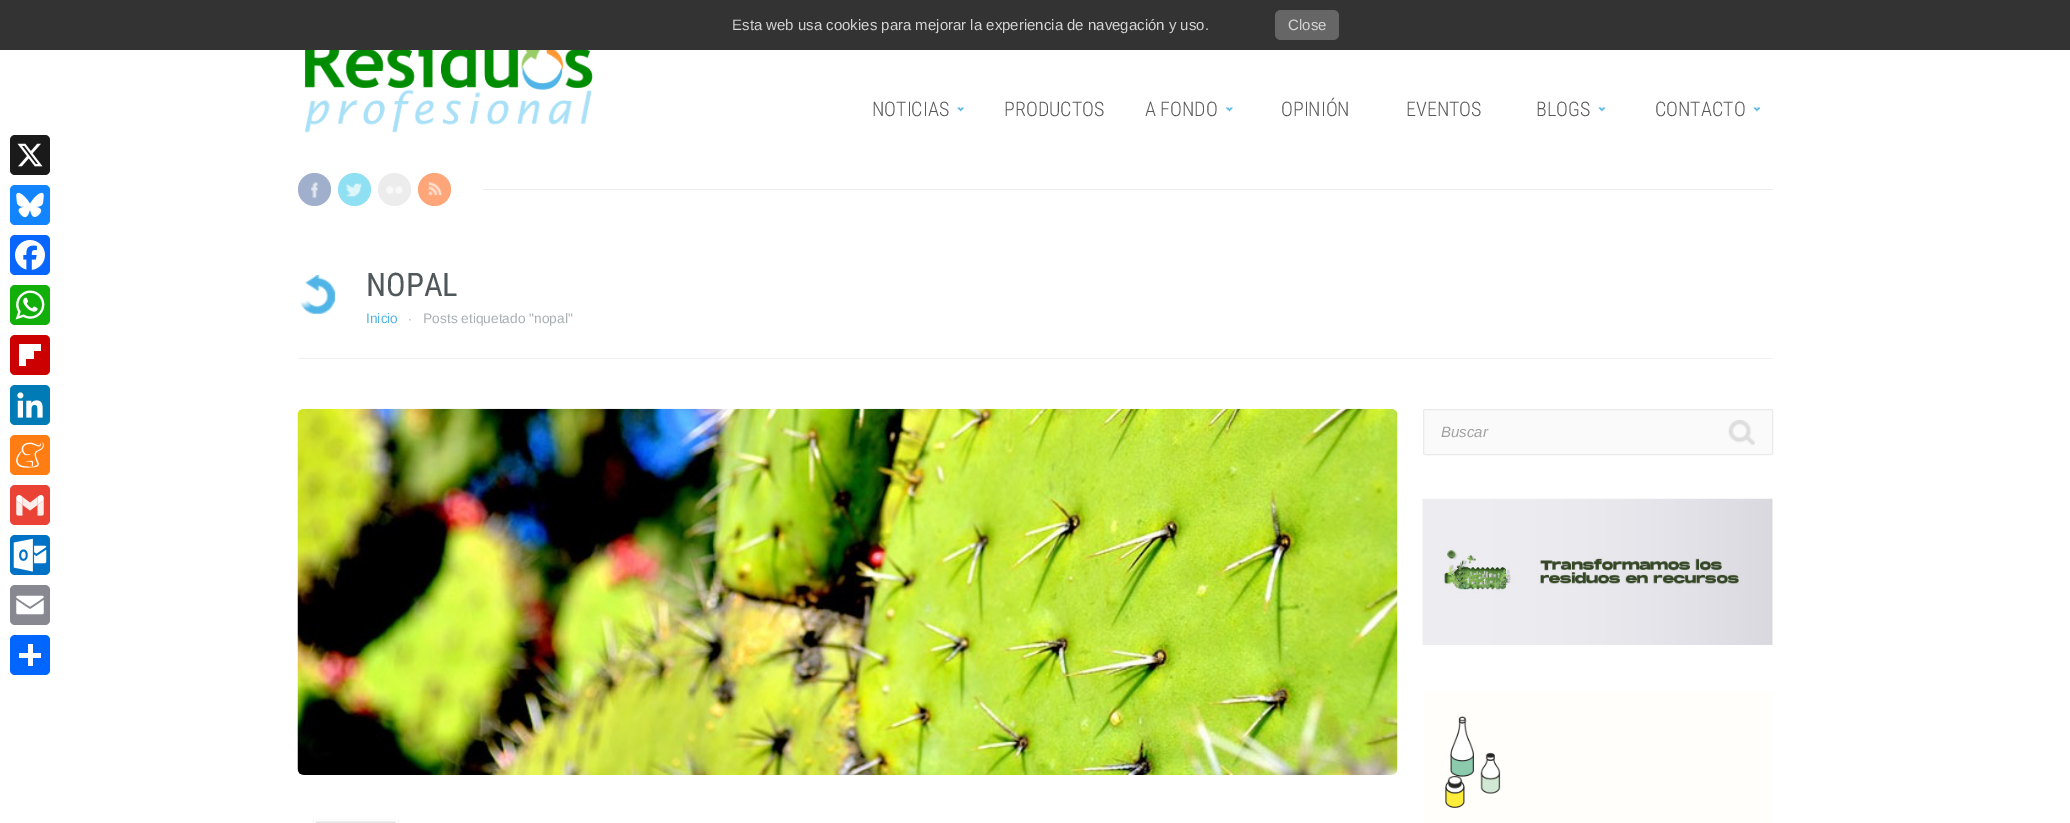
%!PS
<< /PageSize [2070 823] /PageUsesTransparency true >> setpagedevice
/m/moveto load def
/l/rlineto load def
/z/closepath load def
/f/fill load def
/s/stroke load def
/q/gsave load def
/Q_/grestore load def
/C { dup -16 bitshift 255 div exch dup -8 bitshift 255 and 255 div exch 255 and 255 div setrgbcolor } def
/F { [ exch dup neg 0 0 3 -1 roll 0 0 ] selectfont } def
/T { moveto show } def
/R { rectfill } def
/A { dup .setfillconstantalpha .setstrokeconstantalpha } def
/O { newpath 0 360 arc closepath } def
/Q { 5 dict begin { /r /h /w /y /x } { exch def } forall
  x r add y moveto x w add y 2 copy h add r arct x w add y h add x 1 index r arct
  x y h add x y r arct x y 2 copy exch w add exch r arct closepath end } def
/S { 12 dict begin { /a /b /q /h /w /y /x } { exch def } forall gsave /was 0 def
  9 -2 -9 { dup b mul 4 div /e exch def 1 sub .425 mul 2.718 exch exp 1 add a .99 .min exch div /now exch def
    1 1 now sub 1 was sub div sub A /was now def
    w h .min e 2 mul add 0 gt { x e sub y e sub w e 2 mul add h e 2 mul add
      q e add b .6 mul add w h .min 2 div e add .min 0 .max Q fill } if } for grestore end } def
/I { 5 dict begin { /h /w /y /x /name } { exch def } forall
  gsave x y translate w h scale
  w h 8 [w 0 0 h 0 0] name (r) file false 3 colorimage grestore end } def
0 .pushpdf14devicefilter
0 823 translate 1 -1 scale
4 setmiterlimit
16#FFFFFF C
0 0 2070 823 R
16#333333 C
0 0 2070 50 R
/LiberationSans-Regular 15 F
16#D4D4D4 C
(Esta web usa cookies para mejorar la experiencia de navegación y uso.) 732 30 T
16#666666 C
1275 10 64 30 6 Q f
16#D4D4D4 C
(Close) 1288 30 T
16#1A1A1A C
10 135 40 40 5 Q f
(1.rgb) 17 143 26 24 I
16#1285FE C
10 185 40 40 5 Q f
(2.rgb) 16 192 28 26 I
16#0866FF C
10 235 40 40 5 Q f
(3.rgb) 15 240 30 30 I
16#12AF0A C
10 285 40 40 5 Q f
(4.rgb) 15 290 30 30 I
16#CC0000 C
10 335 40 40 5 Q f
16#FFFFFF C
26 351 8 8 R
19 344 22 7 R
19 344 7 22 R
16#007BB5 C
10 385 40 40 5 Q f
(5.rgb) 17 392 26 26 I
16#FF7D12 C
10 435 40 40 5 Q f
(6.rgb) 16 442 28 26 I
16#EA4335 C
10 485 40 40 5 Q f
(7.rgb) 16 495 28 21 I
16#0072C6 C
10 535 40 40 5 Q f
(8.rgb) 13 538 34 34 I
16#888990 C
10 585 40 40 5 Q f
(9.rgb) 16 595 28 20 I
16#0166FF C
10 635 40 40 5 Q f
16#FFFFFF C
28 644 5 22 R
19 653 22 5 R
(10.rgb) 304 50 289 83 I
(11.rgb) 957 107 7 5 I
/RobotoCondensed-Light 20 F
16#575757 C
(NOTICIAS) 872 116 T
(PRODUCTOS) 1004 116 T
(12.rgb) 1226 107 7 5 I
(A FONDO) 1145 116 T
(OPINIÓN) 1281 116 T
(EVENTOS) 1406 116 T
(13.rgb) 1598 107 7 5 I
(BLOGS) 1536 116 T
(13.rgb) 1753 107 7 5 I
(CONTACTO) 1655 116 T
16#EDEDED C
483 189 1290 1 R
16#9FAFCC C
314.5 189.5 16.5 O f
(14.rgb) 311 182 7 16 I
16#8EE0F2 C
354.5 189.5 16.5 O f
(15.rgb) 346 183 16 14 I
16#ECECEC C
394.5 189.5 16.5 O f
(16.rgb) 386 186 17 8 I
16#FEA679 C
434.5 189.5 16.5 O f
(17.rgb) 428 182 14 14 I
16#F1F1F1 C
298 358 1475 1 R
(18.rgb) 300 275 36 39 I
/RobotoCondensed-Regular 32.5 F
16#51585B C
(NOPAL) 366 296 T
/LiberationSans-Regular 13.75 F
16#50B4E6 C
(Inicio) 366 323 T
/LiberationSans-Regular 12 F
16#A8AFB2 C
(·) 408 323 T
/LiberationSans-Regular 13.75 F
(Posts etiquetado "nopal") 423 323 T
(19.rgb) 297 408 1101 367 I
(20.rgb) 315 821 82 2 I
q
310 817 m 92 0 l 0 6 l -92 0 l z 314 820 m 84 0 l 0 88 l -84 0 l z eoclip newpath
16#D9D9D9 C
314 821 84 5 0 1 1 S
Q_
16#FAFAFA C
1423.5 409.5 349 45 2 Q q f Q_
16#EAEAEA C
s
/LiberationSans-Italic 15 F
16#A2A2A2 C
(Buscar) 1441 437 T
(21.rgb) 1728 420 27 25 I
(22.rgb) 1422 498 351 147 I
(23.rgb) 1423 692 349 131 I
.poppdf14devicefilter showpage
